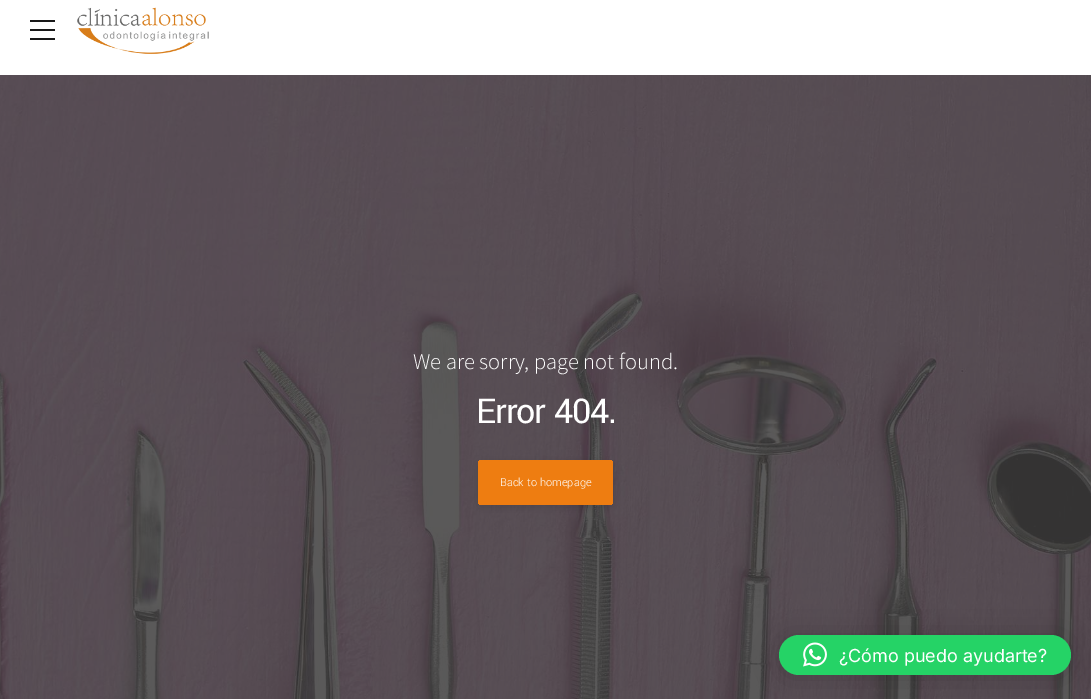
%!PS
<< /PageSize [1091 699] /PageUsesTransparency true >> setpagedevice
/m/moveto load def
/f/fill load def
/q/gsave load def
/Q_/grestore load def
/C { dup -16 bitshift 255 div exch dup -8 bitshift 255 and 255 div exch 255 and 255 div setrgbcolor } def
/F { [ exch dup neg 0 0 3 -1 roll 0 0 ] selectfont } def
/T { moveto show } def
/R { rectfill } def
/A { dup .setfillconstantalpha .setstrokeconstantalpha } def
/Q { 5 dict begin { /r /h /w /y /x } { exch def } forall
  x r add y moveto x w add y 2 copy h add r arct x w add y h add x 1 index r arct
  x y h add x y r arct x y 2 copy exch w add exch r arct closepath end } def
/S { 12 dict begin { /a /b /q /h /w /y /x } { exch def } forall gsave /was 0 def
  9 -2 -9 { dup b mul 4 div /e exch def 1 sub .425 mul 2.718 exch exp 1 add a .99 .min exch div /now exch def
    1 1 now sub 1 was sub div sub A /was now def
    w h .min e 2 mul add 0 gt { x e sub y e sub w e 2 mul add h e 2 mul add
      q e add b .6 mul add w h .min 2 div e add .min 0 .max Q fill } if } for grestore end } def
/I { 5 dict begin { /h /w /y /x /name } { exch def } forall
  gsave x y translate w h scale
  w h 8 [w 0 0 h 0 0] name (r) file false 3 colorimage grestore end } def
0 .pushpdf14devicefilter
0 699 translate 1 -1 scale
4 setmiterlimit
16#FFFFFF C
0 0 1091 699 R
16#181818 C
30 20 25 2 R
30 29 25 2 R
30 38 25 2 R
(1.rgb) 77 7 132 47 I
(2.rgb) 0 75 1091 624 I
/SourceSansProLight-Light 22.5 F
16#FFFFFF C
(We are sorry, page not found.) 413 369 T
/Yantramanav-Regular 38 F
476 423 m -1.1 0 (Error 404.) ashow
16#222222 C
478 462 135 45 4 5 .2 S
q 478 460 135 45 4 Q clip newpath
<< /ShadingType 2 /ColorSpace /DeviceRGB /Coords [478 483 748 483] /Extend [true true] /Function << /FunctionType 3 /Domain [0 1] /Functions [<< /FunctionType 2 /Domain [0 1] /C0 [.933 .49 .067] /C1 [.933 .49 .067] /N 1 >> << /FunctionType 2 /Domain [0 1] /C0 [.933 .49 .067] /C1 [.239 .235 .235] /N 1 >>] /Bounds [.51] /Encode [0 1 0 1] >> >> shfill Q_
/Yantramanav-Light 12.25 F
16#FFFFFF C
(Back to homepage) 500 486 T
16#000000 C
779 637 292 40 20 16 .16 S
16#25D366 C
779 635 292 40 20 Q f
(3.rgb) 803 642 24 25 I
/Inter-Regular 18 F
16#FFFFFF C
(¿Cómo puedo ayudarte?) 839 662 T
.poppdf14devicefilter showpage
